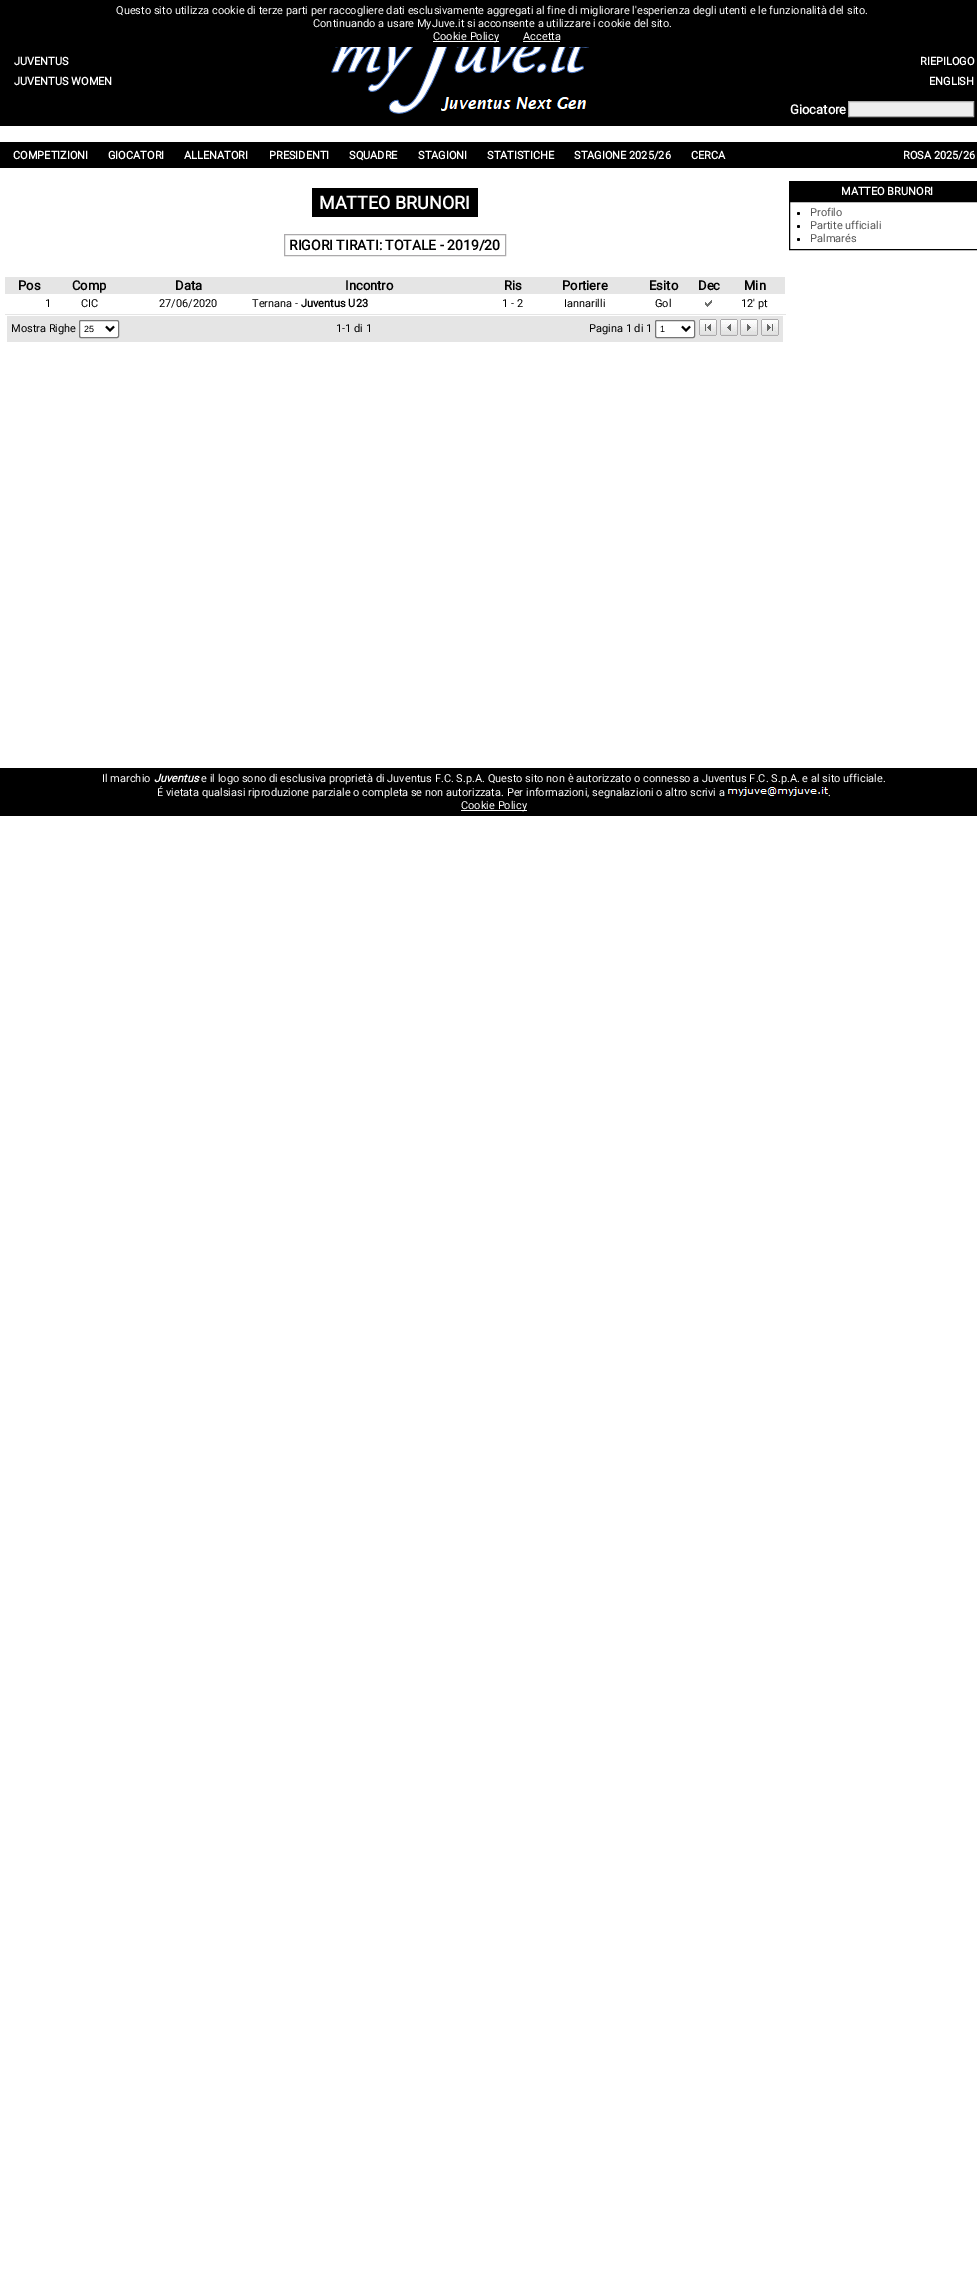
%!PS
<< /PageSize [977 2285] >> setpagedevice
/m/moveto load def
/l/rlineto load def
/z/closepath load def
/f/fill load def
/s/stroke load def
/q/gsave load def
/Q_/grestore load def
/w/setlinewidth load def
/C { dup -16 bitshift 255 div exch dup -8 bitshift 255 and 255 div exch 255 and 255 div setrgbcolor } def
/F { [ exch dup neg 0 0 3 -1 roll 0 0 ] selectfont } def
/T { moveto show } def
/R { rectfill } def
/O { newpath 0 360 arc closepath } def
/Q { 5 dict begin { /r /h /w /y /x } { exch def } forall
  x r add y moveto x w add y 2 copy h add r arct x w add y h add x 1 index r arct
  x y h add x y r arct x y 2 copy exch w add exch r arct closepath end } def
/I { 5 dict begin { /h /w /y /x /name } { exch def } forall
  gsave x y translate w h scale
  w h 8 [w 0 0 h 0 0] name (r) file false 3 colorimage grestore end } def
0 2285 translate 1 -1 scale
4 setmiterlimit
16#FFFFFF C
0 0 977 2285 R
16#000000 C
0 0 977 126 R
/Roboto-Regular 11 F
16#FFFFFF C
(Questo sito utilizza cookie di terze parti per raccogliere dati esclusivamente aggregati al fine di migliorare l'esperienza degli utenti e le funzionalità del sito.) 116 14 T
(Continuando a usare MyJuve.it si acconsente a utilizzare i cookie del sito.) 313 27 T
433 41 66 1 R
(Cookie Policy) 433 40 T
(Accetta) 523 40 T
523 41 37 1 R
/Roboto-Bold 11 F
(JUVENTUS) 14 65 T
(JUVENTUS WOMEN) 14 85 T
(1.rgb) 331 47 260 67 I
(RIEPILOGO) 920 65 T
(ENGLISH) 929 85 T
/Roboto-Bold 13 F
(Giocatore) 790 114 T
16#EEEEEE C
848.5 101.5 m 125 0 l 0 15 l -125 0 l z q f Q_
16#AAAAAA C
s
16#000000 C
0 142 977 26 R
/Roboto-Bold 11 F
16#FFFFFF C
(COMPETIZIONI) 13 159 T
(GIOCATORI) 108 159 T
(ALLENATORI) 184 159 T
(PRESIDENTI) 269 159 T
(SQUADRE) 349 159 T
(STAGIONI) 418 159 T
(STATISTICHE) 487 159 T
(STAGIONE 2025/26) 574 159 T
(CERCA) 691 159 T
(ROSA 2025/26) 903 159 T
16#000000 C
312 188 166 29 R
/Roboto-Bold 18 F
16#FFFFFF C
(MATTEO BRUNORI) 319 209 T
16#ACAAAC C
284.5 234.5 221 21 rectstroke
/Roboto-Bold 14 F
16#000000 C
(RIGORI TIRATI: TOTALE - 2019/20) 289 250 T
16#E5E5E5 C
5 277 780 17 R
/Roboto-Bold 13 F
16#000000 C
(Pos) 18 290 T
(Comp) 72 290 T
(Data) 175 290 T
(Incontro) 345 290 T
(Ris) 504 290 T
(Portiere) 562 290 T
(Esito) 649 290 T
(Dec) 698 290 T
(Min) 744 290 T
16#E5E5E5 C
5 314 781 1 R
/Roboto-Regular 11 F
16#000000 C
(1) 45 307 T
(CIC) 81 307 T
(27/06/2020) 159 307 T
(Ternana -) 252 307 T
/Roboto-Bold 11 F
(Juventus U23) 301 307 T
/Roboto-Regular 11 F
(1 - 2) 502 307 T
(Iannarilli) 564 307 T
(Gol) 655 307 T
(2.rgb) 705 300 7 7 I
(12' pt) 741 307 T
16#E5E5E5 C
7 316 776 26 R
16#000000 C
(Mostra Righe) 11 332 T
16#FFFFFF C
79.5 320.5 39 17 1.5 Q q f Q_
16#767676 C
s
16#000000 C
2 w
106 326.5 m 4 4 l 4 -4 l s
/LiberationSans-Regular 9 F
(25) 84 332 T
/Roboto-Regular 11 F
(1-1 di 1) 336 332 T
(Pagina 1 di 1) 589 332 T
16#FFFFFF C
655.5 320.5 39 17 1.5 Q q f Q_
16#767676 C
1 w
s
16#000000 C
2 w
682 326.5 m 4 4 l 4 -4 l s
/LiberationSans-Regular 9 F
(1) 660 332 T
(3.rgb) 699 319 18 17 I
(4.rgb) 720 319 18 17 I
(5.rgb) 740 319 18 17 I
(6.rgb) 761 319 18 17 I
789 181 188 20 R
/Roboto-Bold 11 F
16#FFFFFF C
(MATTEO BRUNORI) 841 195 T
16#000000 C
1 w
789.5 201.5 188 48 rectstroke
798.5 213.5 1.5 O f
/Roboto-Regular 11 F
16#565656 C
(Profilo) 810 216 T
16#000000 C
798.5 226.5 1.5 O f
16#565656 C
(Partite ufficiali) 810 229 T
16#000000 C
798.5 239.5 1.5 O f
16#565656 C
(Palmarés) 810 242 T
16#000000 C
0 768 977 48 R
16#FFFFFF C
(Il marchio) 102 782 T
/Roboto-BoldItalic 11 F
(Juventus) 154 782 T
/Roboto-Regular 11 F
(e il logo sono di esclusiva proprietà di Juventus F.C. S.p.A. Questo sito non è autorizzato o connesso a Juventus F.C. S.p.A. e al sito ufficiale.) 201 782 T
(É vietata qualsiasi riproduzione parziale o completa se non autorizzata. Per informazioni, segnalazioni o altro scrivi a) 157 796 T
(7.rgb) 728 787 100 9 I
(.) 828 796 T
461 810 66 1 R
(Cookie Policy) 461 809 T
showpage
